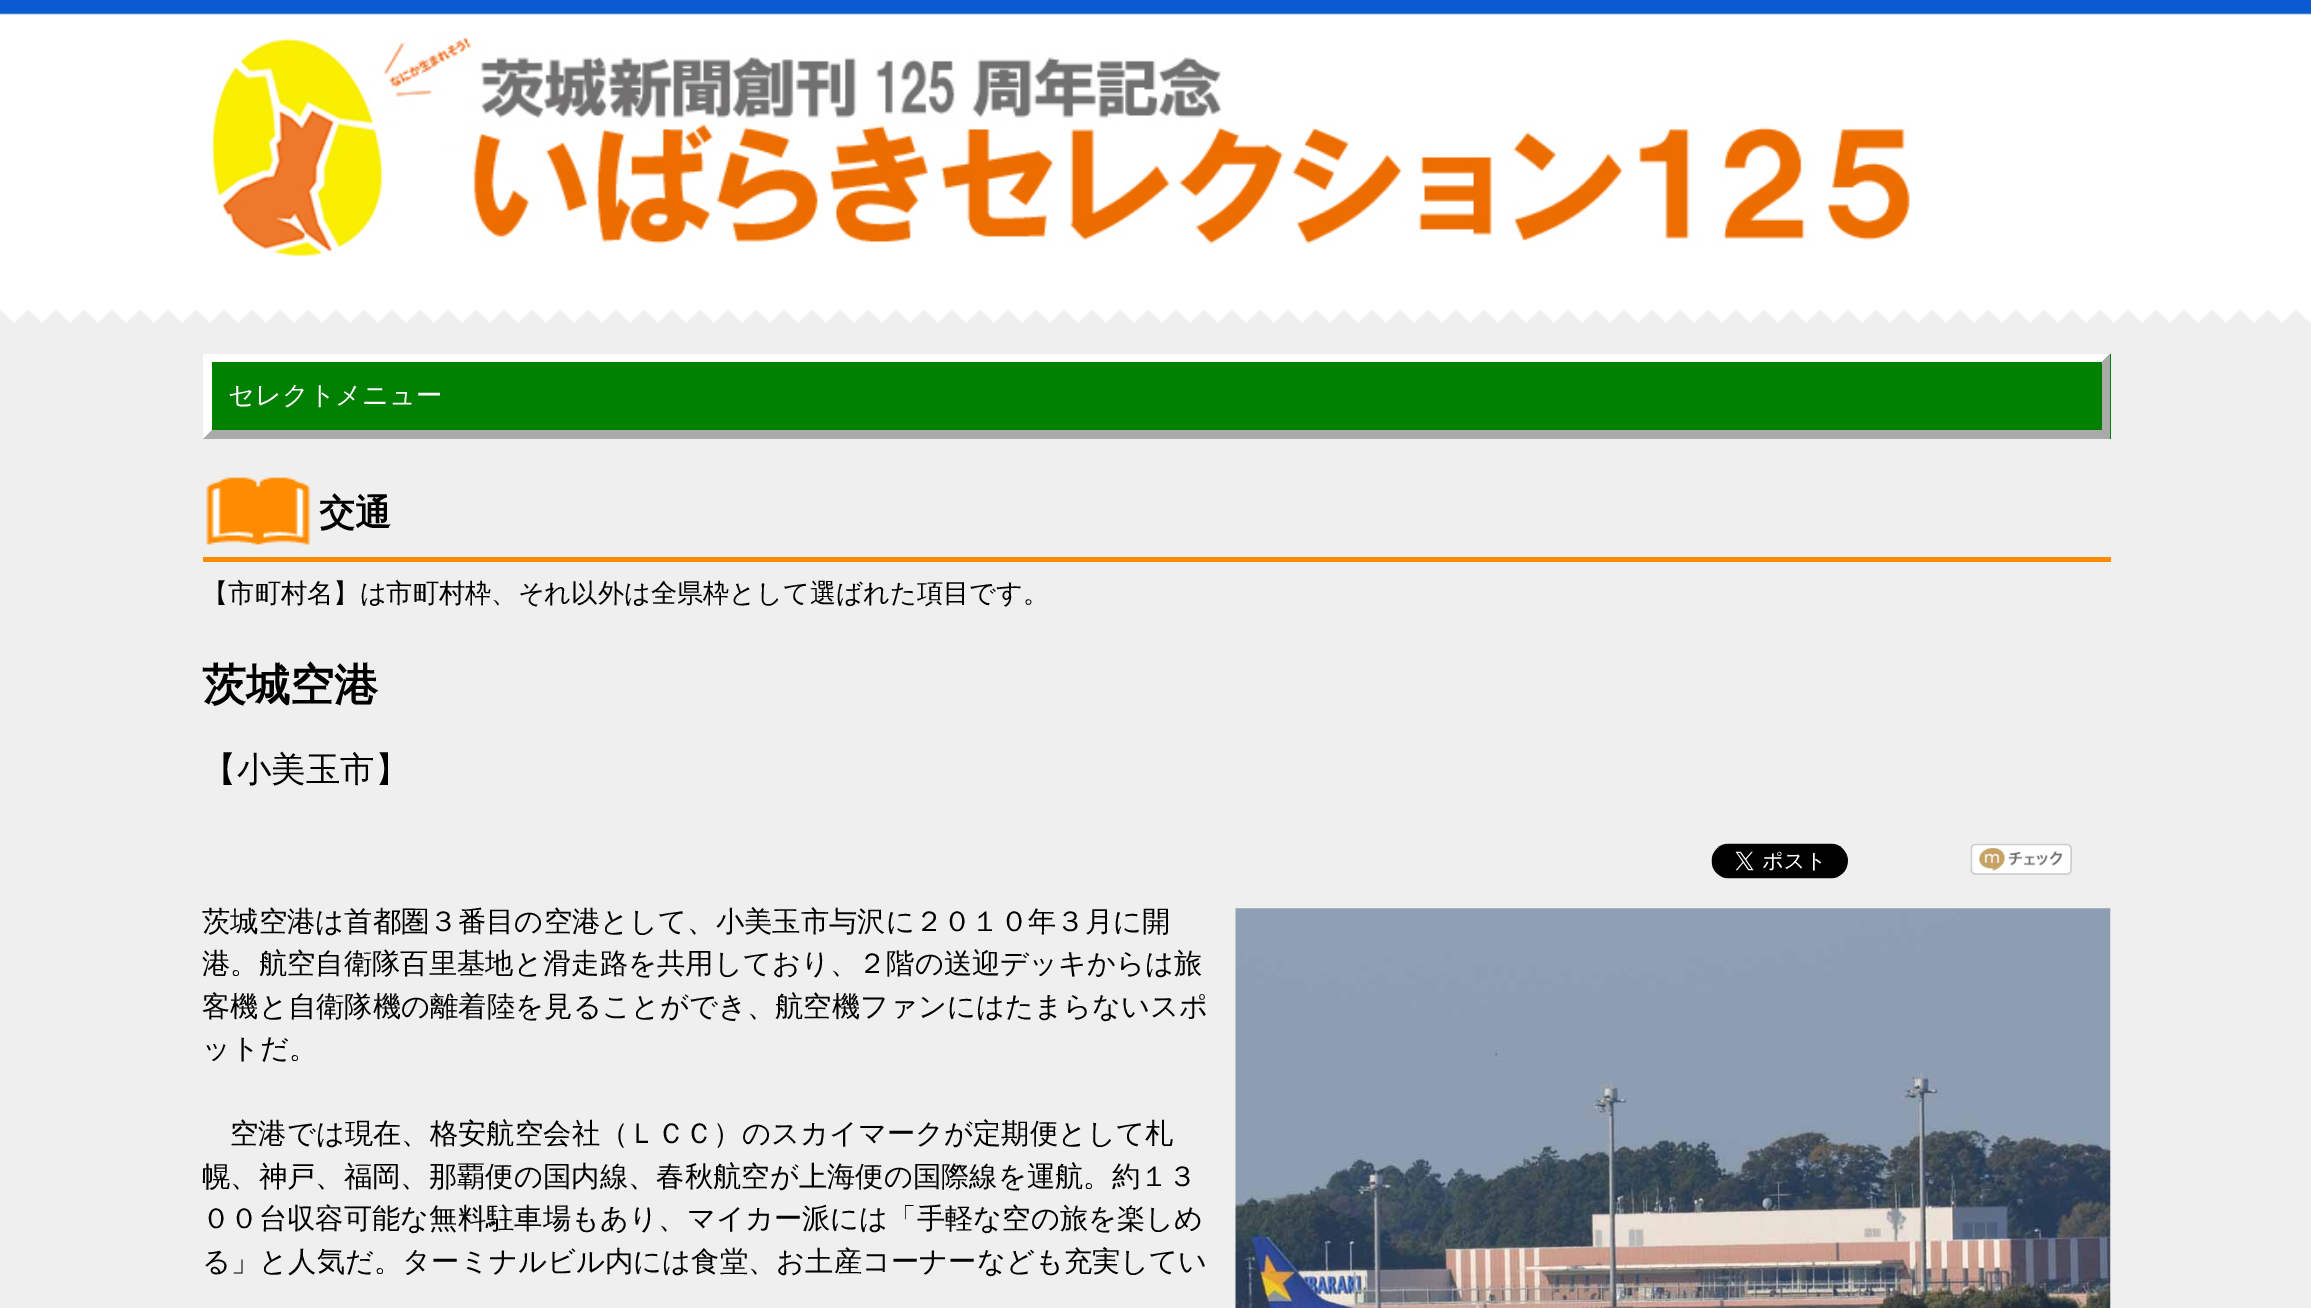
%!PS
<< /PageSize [2311 1308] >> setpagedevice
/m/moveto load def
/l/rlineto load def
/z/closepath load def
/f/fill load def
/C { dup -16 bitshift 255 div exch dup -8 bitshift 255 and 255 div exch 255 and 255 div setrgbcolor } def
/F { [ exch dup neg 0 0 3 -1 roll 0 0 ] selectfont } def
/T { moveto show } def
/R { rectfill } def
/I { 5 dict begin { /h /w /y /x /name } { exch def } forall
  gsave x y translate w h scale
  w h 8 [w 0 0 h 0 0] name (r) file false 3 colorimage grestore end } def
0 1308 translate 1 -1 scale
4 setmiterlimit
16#EFEFEF C
0 0 2311 1308 R
(1.rgb) 0 0 2311 323 I
(2.rgb) 211 38 1699 219 I
16#008000 C
203 354 1908 85 R
16#FFFFFF C
203 354 m 1907 0 l -8 8 l -1890 0 l z f
16#AAAAAA C
2110 354 m 0 85 l -8 -9 l 0 -68 l z f
2110 439 m -1907 0 l 9 -9 l 1890 0 l z f
16#FFFFFF C
203 439 m 0 -85 l 9 8 l 0 68 l z f
/WenQuanYiZenHei-Medium 26.25 F
(セレクトメニュー) 228 404 T
(3.rgb) 206 477 105 68 I
16#FF8C00 C
203 557 1908 5 R
/WenQuanYiZenHei-Bold 36 F
16#000000 C
(交通) 319 525 T
/WenQuanYiZenHei-Medium 26.25 F
(【市町村名】は市町村枠、それ以外は全県枠として選ばれた項目です。) 202 602 T
/WenQuanYiZenHei-Bold 44 F
(茨城空港) 202 700 T
/WenQuanYiZenHei-Medium 34.5 F
(【小美玉市】) 202 781 T
(4.rgb) 1711 843 137 36 I
(5.rgb) 1970 843 102 32 I
/WenQuanYiZenHei-Medium 28.35 F
(茨城空港は首都圏３番目の空港として、小美玉市与沢に２０１０年３月に開) 202 931 T
(港。航空自衛隊百里基地と滑走路を共用しており、２階の送迎デッキからは旅) 202 973 T
(客機と自衛隊機の離着陸を見ることができ、航空機ファンにはたまらないスポ) 202 1016 T
(ットだ。) 202 1058 T
(空港では現在、格安航空会社（ＬＣＣ）のスカイマークが定期便として札) 230 1143 T
(幌、神戸、福岡、那覇便の国内線、春秋航空が上海便の国際線を運航。約１３) 202 1186 T
(００台収容可能な無料駐車場もあり、マイカー派には「手軽な空の旅を楽しめ) 202 1228 T
(る」と人気だ。ターミナルビル内には食堂、お土産コーナーなども充実してい) 202 1271 T
(6.rgb) 1235 908 876 400 I
showpage
